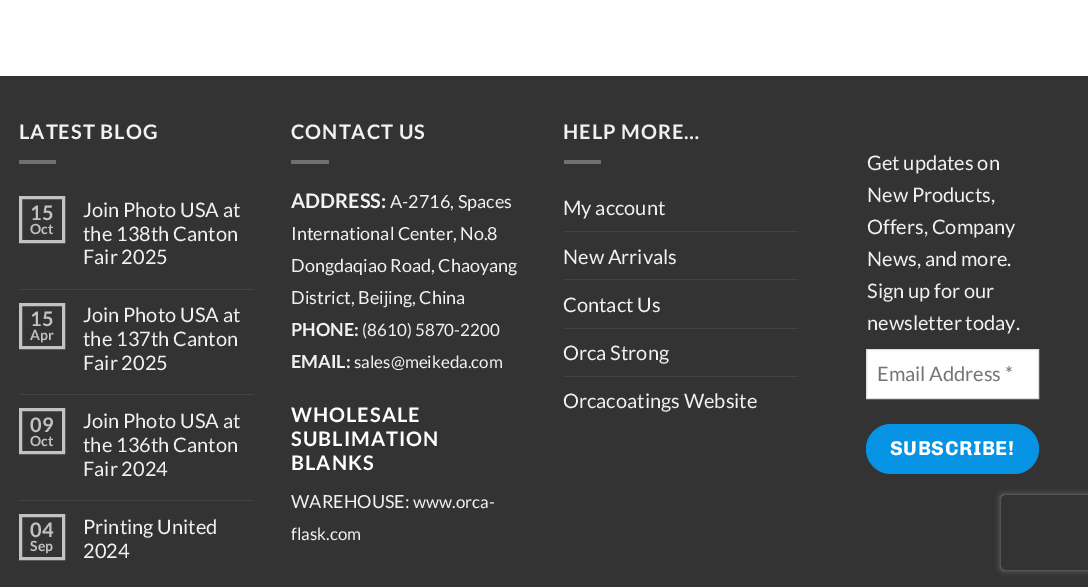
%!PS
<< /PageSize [1088 587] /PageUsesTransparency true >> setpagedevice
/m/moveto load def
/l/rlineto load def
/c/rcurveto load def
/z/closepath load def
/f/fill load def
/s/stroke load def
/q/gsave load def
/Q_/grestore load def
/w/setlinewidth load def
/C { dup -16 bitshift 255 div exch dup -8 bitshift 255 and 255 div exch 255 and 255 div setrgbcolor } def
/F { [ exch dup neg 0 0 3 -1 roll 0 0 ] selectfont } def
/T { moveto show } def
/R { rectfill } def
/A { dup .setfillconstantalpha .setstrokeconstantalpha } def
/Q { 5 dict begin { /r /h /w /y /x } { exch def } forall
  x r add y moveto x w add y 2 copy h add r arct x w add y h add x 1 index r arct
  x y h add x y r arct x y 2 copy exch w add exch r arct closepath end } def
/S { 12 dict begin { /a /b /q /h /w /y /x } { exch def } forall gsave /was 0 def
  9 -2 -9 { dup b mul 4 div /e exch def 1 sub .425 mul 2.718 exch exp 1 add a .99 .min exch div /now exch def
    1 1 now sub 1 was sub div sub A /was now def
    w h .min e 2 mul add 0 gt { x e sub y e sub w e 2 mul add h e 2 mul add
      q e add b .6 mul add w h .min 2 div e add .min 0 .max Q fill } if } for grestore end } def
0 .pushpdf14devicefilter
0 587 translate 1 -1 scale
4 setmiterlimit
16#FFFFFF C
0 0 1088 587 R
16#333333 C
0 77 1088 510 R
16#303030 C
0 76 1088 1 R
/Lato-Bold 20 F
16#F1F1F1 C
19 139 m 1 0 (LATEST BLOG) ashow
16#707070 C
19 160 37 4 R
16#C2C2C2 C
3 w
20.5 197.5 43 44 rectstroke
(15) 30 220 T
/Lato-Bold 14 F
(Oct) 30 234 T
/Lato-Regular 20 F
16#F1F1F1 C
(Join Photo USA at) 83 217 T
(the 138th Canton) 83 241 T
(Fair 2025) 83 264 T
16#434343 C
19 289 235 1 R
16#C2C2C2 C
20.5 304.5 43 43 rectstroke
/Lato-Bold 20 F
(15) 30 326 T
/Lato-Bold 14 F
(Apr) 30 340 T
/Lato-Regular 20 F
16#F1F1F1 C
(Join Photo USA at) 83 322 T
(the 137th Canton) 83 346 T
(Fair 2025) 83 370 T
16#434343 C
19 394 235 1 R
16#C2C2C2 C
20.5 409.5 43 43 rectstroke
/Lato-Bold 20 F
(09) 30 432 T
/Lato-Bold 14 F
(Oct) 30 446 T
/Lato-Regular 20 F
16#F1F1F1 C
(Join Photo USA at) 83 428 T
(the 136th Canton) 83 452 T
(Fair 2024) 83 476 T
16#434343 C
19 500 235 1 R
16#C2C2C2 C
20.5 515.5 43 43 rectstroke
/Lato-Bold 20 F
(04) 30 537 T
/Lato-Bold 14 F
(Sep) 30 551 T
/Lato-Regular 20 F
16#F1F1F1 C
(Printing United) 83 534 T
(2024) 83 558 T
/Lato-Bold 20 F
291 139 m 1 0 (CONTACT US) ashow
16#707070 C
291 160 38 4 R
16#F1F1F1 C
(ADDRESS:) 291 208 T
/Lato-Regular 18 F
(A-2716, Spaces) 390 208 T
(International Center, No.8) 291 240 T
(Dongdaqiao Road, Chaoyang) 291 272 T
(District, Beijing, China) 291 304 T
/Lato-Bold 18 F
(PHONE:) 291 336 T
/Lato-Regular 17 F
(\(8610\) 5870-2200) 362 336 T
/Lato-Bold 18 F
(EMAIL:) 291 368 T
/Lato-Regular 17 F
(sales@meikeda.com) 354 368 T
/Lato-Bold 20 F
16#FFFFFF C
291 422 m 1 0 (WHOLESALE) ashow
291 446 m 1 0 (SUBLIMATION) ashow
291 470 m 1 0 (BLANKS) ashow
/Lato-Regular 18 F
16#F1F1F1 C
(WAREHOUSE:) 291 508 T
/Lato-Regular 17 F
(www.orca-) 413 508 T
(flask.com) 291 540 T
/Lato-Bold 20 F
563 139 m 1 0 (HELP MORE…) ashow
16#707070 C
564 160 37 4 R
/Lato-Regular 20 F
16#F1F1F1 C
(My account) 563 215 T
16#434343 C
564 231 234 1 R
16#F1F1F1 C
(New Arrivals) 563 264 T
16#434343 C
564 279 234 1 R
16#F1F1F1 C
(Contact Us) 563 312 T
16#434343 C
564 328 234 1 R
16#F1F1F1 C
(Orca Strong) 563 360 T
16#434343 C
564 376 234 1 R
16#F1F1F1 C
(Orcacoatings Website) 563 408 T
(Get updates on) 867 170 T
(New Products,) 867 202 T
(Offers, Company) 867 234 T
(News, and more.) 867 266 T
(Sign up for our) 867 298 T
(newsletter today.) 867 330 T
16#FFFFFF C
866.5 349.5 m 172 0 l 0 49 l -172 0 l z q f Q_
16#DDDDDD C
1 w
s
16#757575 C
(Email Address *) 877 381 T
16#0693E3 C
866 424 173 50 25 Q f
/Chivo-Bold 20 F
16#FFFFFF C
890 455 m .5 0 (SUBSCRIBE!) ashow
q
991 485 m 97 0 l 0 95 l -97 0 l z 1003.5 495 m 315 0 l 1.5 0 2.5 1 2.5 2.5 c 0 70 l 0 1.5 -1 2.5 -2.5 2.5 c -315 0 l -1.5 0 -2.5 -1 -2.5 -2.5 c 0 -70 l 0 -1.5 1 -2.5 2.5 -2.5 c z eoclip newpath
16#808080 C
1001 495 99 75 2.5 3 1 S
Q_
.poppdf14devicefilter showpage
